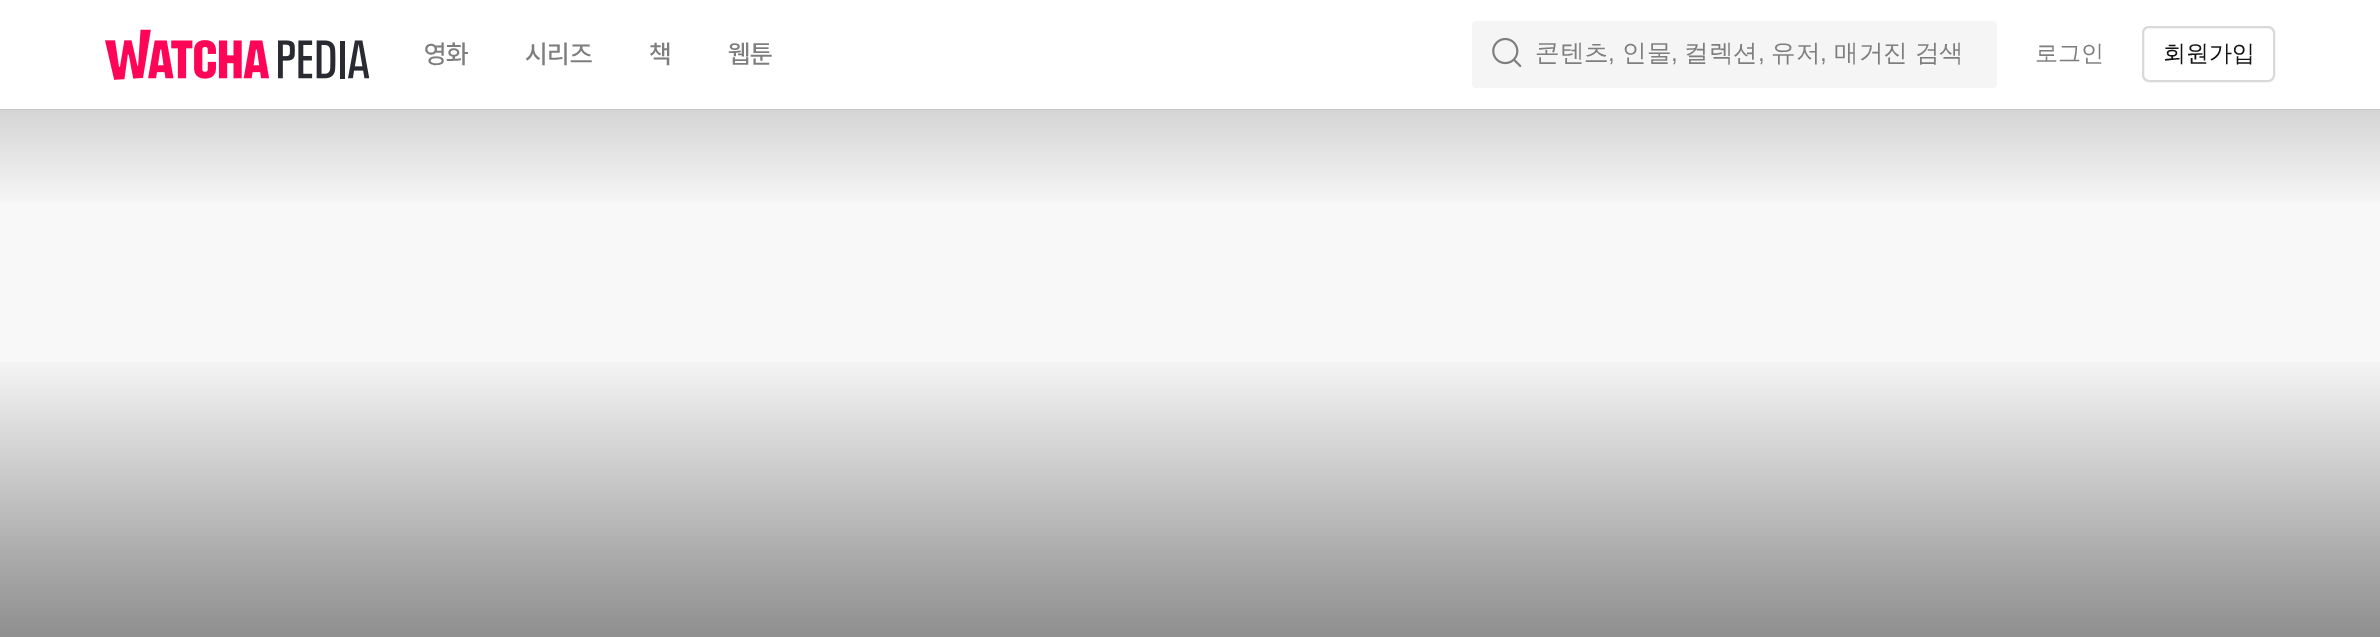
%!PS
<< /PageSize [2380 637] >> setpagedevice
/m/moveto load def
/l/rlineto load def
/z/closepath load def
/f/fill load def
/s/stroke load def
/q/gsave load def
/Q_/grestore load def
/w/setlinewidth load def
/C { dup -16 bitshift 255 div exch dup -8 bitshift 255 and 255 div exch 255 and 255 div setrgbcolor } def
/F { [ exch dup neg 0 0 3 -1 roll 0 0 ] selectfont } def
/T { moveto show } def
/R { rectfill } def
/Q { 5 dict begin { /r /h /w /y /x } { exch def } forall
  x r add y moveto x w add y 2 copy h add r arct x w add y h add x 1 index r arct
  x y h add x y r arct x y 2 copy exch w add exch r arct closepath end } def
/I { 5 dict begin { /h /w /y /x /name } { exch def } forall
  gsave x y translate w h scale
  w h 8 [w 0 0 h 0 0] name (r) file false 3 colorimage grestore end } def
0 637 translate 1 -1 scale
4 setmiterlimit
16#F8F8F8 C
0 0 2380 637 R
16#C4C4C4 C
0 109 2380 1 R
16#FFFFFF C
0 0 2380 109 R
(1.rgb) 105 29 264 51 I
/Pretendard-Medium 26 F
16#7E7E7E C
(영화) 424 63 T
(시리즈) 525 63 T
(책) 649 63 T
(웹툰) 728 63 T
16#F5F5F5 C
1472 21 525 67 4 Q f
(2.rgb) 1492 37 30 30 I
/WenQuanYiZenHei-Medium 24.5 F
16#7E7E7E C
(콘텐츠) 1535 61 T
/LiberationSans-Regular 24.5 F
(,) 1608 61 T
/WenQuanYiZenHei-Medium 24.5 F
(인물) 1622 61 T
/LiberationSans-Regular 24.5 F
(,) 1671 61 T
/WenQuanYiZenHei-Medium 24.5 F
(컬렉션) 1684 61 T
/LiberationSans-Regular 24.5 F
(,) 1758 61 T
/WenQuanYiZenHei-Medium 24.5 F
(유저) 1771 61 T
/LiberationSans-Regular 24.5 F
(,) 1820 61 T
/WenQuanYiZenHei-Medium 24.5 F
(매거진 검색) 1834 61 T
/WenQuanYiZenHei-Medium 23 F
(로그인) 2035 61 T
16#D9D9D9 C
2 w
2143 27 131 54 6 Q s
16#141414 C
(회원가입) 2163 61 T
q 0 110 m 2380 0 l 0 93 l -2380 0 l z clip newpath
<< /ShadingType 2 /ColorSpace /DeviceRGB /Coords [1190 0 1190 210] /Extend [true true] /Function << /FunctionType 2 /Domain [0 1] /C0 [.682 .682 .682] /C1 [.973 .973 .973] /N 1 >> >> shfill Q_
q 0 362 m 2380 0 l 0 275 l -2380 0 l z clip newpath
<< /ShadingType 2 /ColorSpace /DeviceRGB /Coords [1190 350 1190 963] /Extend [true true] /Function << /FunctionType 3 /Domain [0 1] /Functions [<< /FunctionType 2 /Domain [0 1] /C0 [.98 .98 .98] /C1 [.686 .686 .686] /N 1 >> << /FunctionType 2 /Domain [0 1] /C0 [.686 .686 .686] /C1 [.392 .392 .392] /N 1 >> << /FunctionType 2 /Domain [0 1] /C0 [.392 .392 .392] /C1 [.196 .196 .196] /N 1 >>] /Bounds [.32 .67] /Encode [0 1 0 1 0 1] >> >> shfill Q_
showpage
